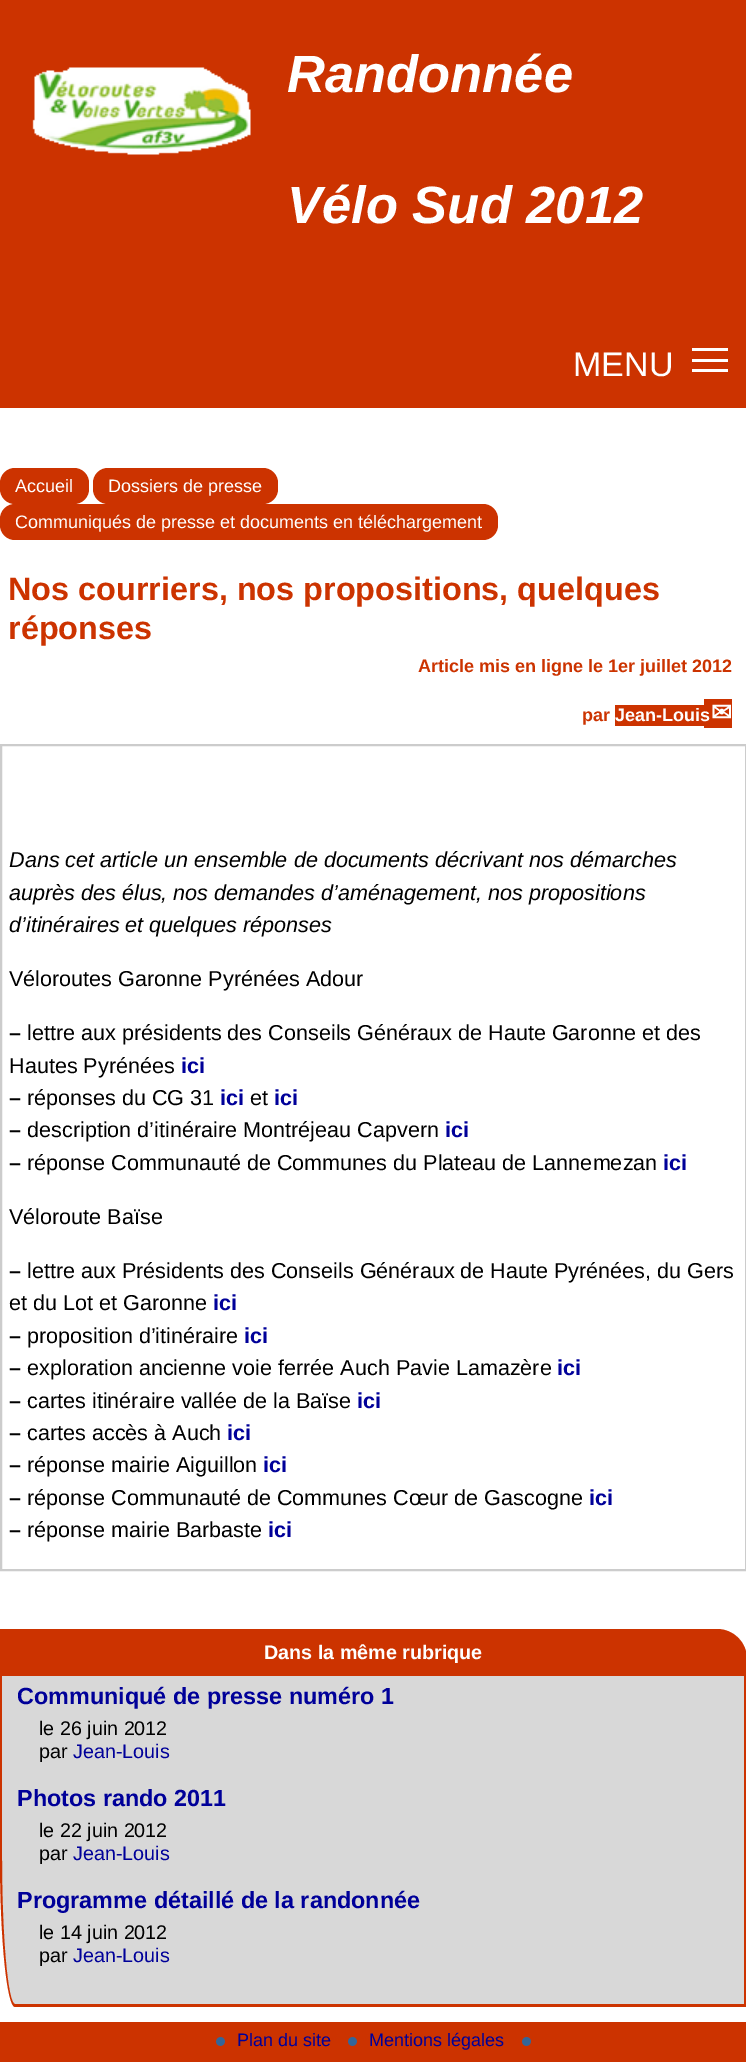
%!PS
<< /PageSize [746 2062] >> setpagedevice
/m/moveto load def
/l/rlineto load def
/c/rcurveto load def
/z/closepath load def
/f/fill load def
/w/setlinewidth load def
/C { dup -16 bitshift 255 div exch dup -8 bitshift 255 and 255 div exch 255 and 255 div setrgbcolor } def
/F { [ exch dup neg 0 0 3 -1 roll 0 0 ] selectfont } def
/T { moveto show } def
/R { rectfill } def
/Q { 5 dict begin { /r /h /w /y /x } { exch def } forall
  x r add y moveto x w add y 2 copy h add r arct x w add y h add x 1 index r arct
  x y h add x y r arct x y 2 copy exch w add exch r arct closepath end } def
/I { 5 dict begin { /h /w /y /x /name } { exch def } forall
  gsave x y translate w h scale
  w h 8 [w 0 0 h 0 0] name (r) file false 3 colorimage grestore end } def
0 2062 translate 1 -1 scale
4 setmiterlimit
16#FFFFFF C
0 0 746 2062 R
16#CC3300 C
0 0 746 408 R
(1.rgb) 32 67 219 88 I
/LiberationSans-BoldItalic 52.5 F
16#FFFFFF C
(Randonnée) 287 92 T
(Vélo Sud 2012) 287 223 T
/LiberationSans-Regular 34 F
(MENU) 573 376 T
692 359 36 3 R
692 348 36 3 R
692 369 36 3 R
16#CC3300 C
0 468 89 36 15 Q f
/LiberationSans-Regular 18 F
16#FFFFFF C
(Accueil) 15 492 T
16#CC3300 C
93 468 185 36 15 Q f
16#FFFFFF C
(Dossiers de presse) 108 492 T
16#CC3300 C
0 504 498 36 15 Q f
16#FFFFFF C
(Communiqués de presse et documents en téléchargement) 15 528 T
/LiberationSans-Bold 32.4 F
16#CC3300 C
(Nos courriers, nos propositions, quelques) 8 600 T
(réponses) 8 639 T
/LiberationSans-Bold 18 F
(Article mis en ligne le 1er juillet 2012) 418 672 T
(par) 582 721 T
615 705 89 21 R
704 699 28 29 R
16#FFFFFF C
(Jean-Louis) 615 721 T
/DejaVuSans-Bold 25 F
(✉) 711 721 T
16#CCCCCC C
2 w
1 745 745 825 rectstroke
/LiberationSans-Italic 21.6 F
16#000000 C
(Dans cet article un ensemble de documents décrivant nos démarches) 9 867 T
(auprès des élus, nos demandes d’aménagement, nos propositions) 9 900 T
(d’itinéraires et quelques réponses) 9 932 T
/LiberationSans-Regular 21.6 F
(Véloroutes Garonne Pyrénées Adour) 9 986 T
/LiberationSans-Bold 21.6 F
(–) 9 1040 T
/LiberationSans-Regular 21.6 F
(lettre aux présidents des Conseils Généraux de Haute Garonne et des) 27 1040 T
(Hautes Pyrénées) 9 1073 T
/LiberationSans-Bold 21.6 F
16#000099 C
(ici) 181 1073 T
16#000000 C
(–) 9 1105 T
/LiberationSans-Regular 21.6 F
(réponses du CG 31) 27 1105 T
/LiberationSans-Bold 21.6 F
16#000099 C
(ici) 220 1105 T
/LiberationSans-Regular 21.6 F
16#000000 C
(et) 250 1105 T
/LiberationSans-Bold 21.6 F
16#000099 C
(ici) 274 1105 T
16#000000 C
(–) 9 1137 T
/LiberationSans-Regular 21.6 F
(description d’itinéraire Montréjeau Capvern) 27 1137 T
/LiberationSans-Bold 21.6 F
16#000099 C
(ici) 445 1137 T
16#000000 C
(–) 9 1170 T
/LiberationSans-Regular 21.6 F
(réponse Communauté de Communes du Plateau de Lannemezan) 27 1170 T
/LiberationSans-Bold 21.6 F
16#000099 C
(ici) 663 1170 T
/LiberationSans-Regular 21.6 F
16#000000 C
(Véloroute Baïse) 9 1224 T
/LiberationSans-Bold 21.6 F
(–) 9 1278 T
/LiberationSans-Regular 21.6 F
(lettre aux Présidents des Conseils Généraux de Haute Pyrénées, du Gers) 27 1278 T
(et du Lot et Garonne) 9 1310 T
/LiberationSans-Bold 21.6 F
16#000099 C
(ici) 213 1310 T
16#000000 C
(–) 9 1343 T
/LiberationSans-Regular 21.6 F
(proposition d’itinéraire) 27 1343 T
/LiberationSans-Bold 21.6 F
16#000099 C
(ici) 244 1343 T
16#000000 C
(–) 9 1375 T
/LiberationSans-Regular 21.6 F
(exploration ancienne voie ferrée Auch Pavie Lamazère) 27 1375 T
/LiberationSans-Bold 21.6 F
16#000099 C
(ici) 557 1375 T
16#000000 C
(–) 9 1408 T
/LiberationSans-Regular 21.6 F
(cartes itinéraire vallée de la Baïse) 27 1408 T
/LiberationSans-Bold 21.6 F
16#000099 C
(ici) 357 1408 T
16#000000 C
(–) 9 1440 T
/LiberationSans-Regular 21.6 F
(cartes accès à Auch) 27 1440 T
/LiberationSans-Bold 21.6 F
16#000099 C
(ici) 227 1440 T
16#000000 C
(–) 9 1472 T
/LiberationSans-Regular 21.6 F
(réponse mairie Aiguillon) 27 1472 T
/LiberationSans-Bold 21.6 F
16#000099 C
(ici) 263 1472 T
16#000000 C
(–) 9 1505 T
/LiberationSans-Regular 21.6 F
(réponse Communauté de Communes Cœur de Gascogne) 27 1505 T
/LiberationSans-Bold 21.6 F
16#000099 C
(ici) 589 1505 T
16#000000 C
(–) 9 1537 T
/LiberationSans-Regular 21.6 F
(réponse mairie Barbaste) 27 1537 T
/LiberationSans-Bold 21.6 F
16#000099 C
(ici) 268 1537 T
16#CC3300 C
0 1629 m 717 0 l 16.5 0 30 13.5 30 30 c 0 17 l -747 0 l z f
/LiberationSans-Bold 19.75 F
16#FFFFFF C
(Dans la même rubrique) 264 1659 T
16#D8D8D8 C
2 1676 m 742 0 l 0 328 l -729 0 l -7 0 -13 -66 -13 -147 c z f
16#CC3300 C
0 1676 m 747 0 l 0 331 l -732 0 l -8 0 -15 -67 -15 -150 c z 2 1676 m 742 0 l 0 328 l -729 0 l -7 0 -13 -66 -13 -147 c z eofill
/LiberationSans-Bold 23.4 F
16#000099 C
(Communiqué de presse numéro 1) 17 1704 T
/LiberationSans-Regular 19.75 F
16#000000 C
(le 26 juin 2012) 39 1735 T
(par) 39 1758 T
16#000099 C
(Jean-Louis) 73 1758 T
/LiberationSans-Bold 23.4 F
(Photos rando 2011) 17 1806 T
/LiberationSans-Regular 19.75 F
16#000000 C
(le 22 juin 2012) 39 1837 T
(par) 39 1860 T
16#000099 C
(Jean-Louis) 73 1860 T
/LiberationSans-Bold 23.4 F
(Programme détaillé de la randonnée) 17 1908 T
/LiberationSans-Regular 19.75 F
16#000000 C
(le 14 juin 2012) 39 1939 T
(par) 39 1962 T
16#000099 C
(Jean-Louis) 73 1962 T
16#CC3300 C
0 2022 746 40 R
(2.rgb) 216 2037 9 9 I
/LiberationSans-Regular 18 F
16#000099 C
(Plan du site) 237 2046 T
(2.rgb) 348 2037 9 9 I
(Mentions légales) 369 2046 T
(2.rgb) 522 2037 9 9 I
showpage
